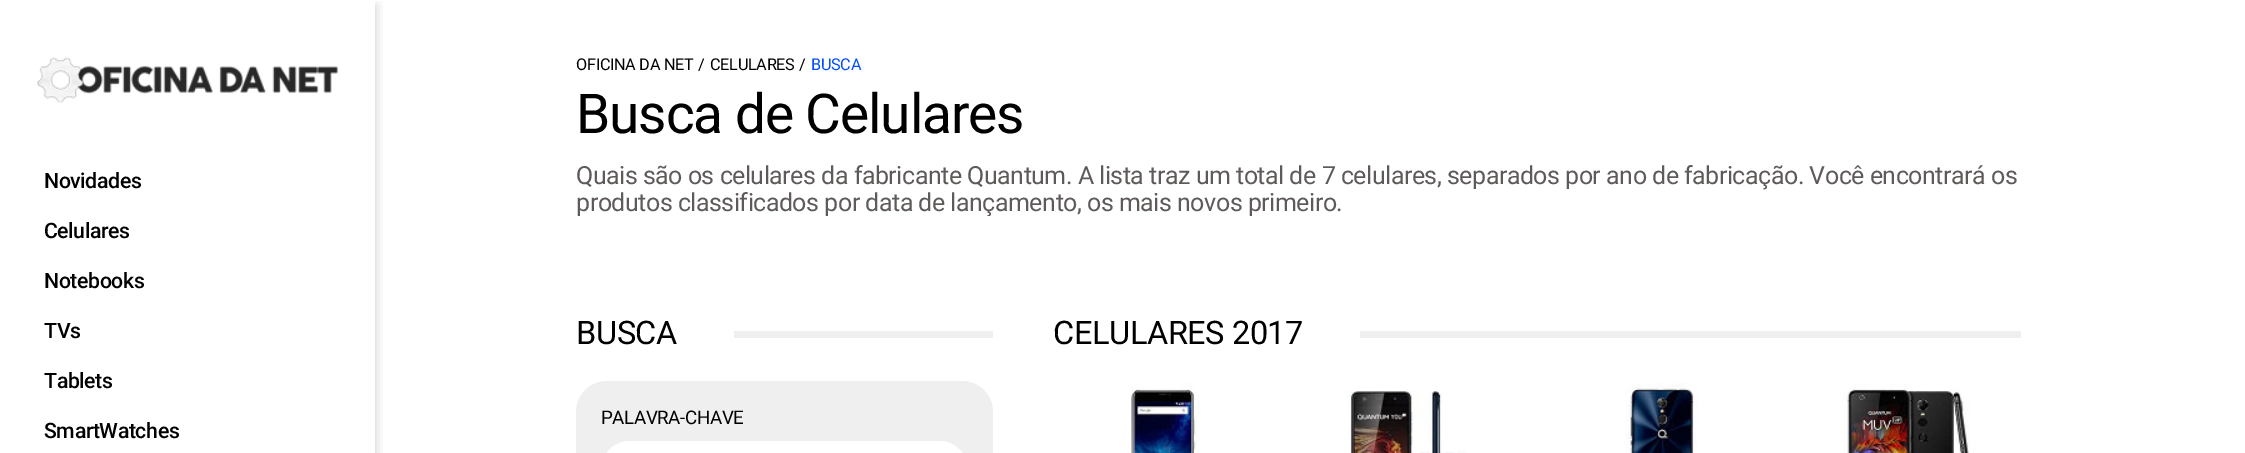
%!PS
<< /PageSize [2245 453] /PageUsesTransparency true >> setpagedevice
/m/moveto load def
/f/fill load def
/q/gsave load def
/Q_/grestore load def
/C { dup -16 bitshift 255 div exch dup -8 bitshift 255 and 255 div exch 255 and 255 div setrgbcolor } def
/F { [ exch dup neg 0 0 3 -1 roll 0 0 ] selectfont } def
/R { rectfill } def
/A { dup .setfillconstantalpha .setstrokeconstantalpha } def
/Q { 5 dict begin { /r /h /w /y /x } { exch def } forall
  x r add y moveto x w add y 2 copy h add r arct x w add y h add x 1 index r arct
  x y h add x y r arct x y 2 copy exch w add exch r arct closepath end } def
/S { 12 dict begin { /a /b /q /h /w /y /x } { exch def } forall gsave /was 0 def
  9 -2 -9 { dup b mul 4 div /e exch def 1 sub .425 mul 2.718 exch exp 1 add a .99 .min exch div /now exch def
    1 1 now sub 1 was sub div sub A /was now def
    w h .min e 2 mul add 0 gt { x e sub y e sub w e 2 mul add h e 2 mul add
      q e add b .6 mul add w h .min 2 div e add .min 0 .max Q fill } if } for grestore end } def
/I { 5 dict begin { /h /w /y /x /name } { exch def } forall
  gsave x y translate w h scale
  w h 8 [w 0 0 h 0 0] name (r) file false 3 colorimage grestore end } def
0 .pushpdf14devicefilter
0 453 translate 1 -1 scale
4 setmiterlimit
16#FFFFFF C
0 0 2245 453 R
q
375 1 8 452 rectclip
16#000000 C
0 6 375 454 0 6 .2 S
Q_
(1.rgb) 37 57 301 46 I
/Roboto-Medium 21.25 F
16#000000 C
44 188 m -.4 0 (Novidades) ashow
44 238 m -.4 0 (Celulares) ashow
44 288 m -.4 0 (Notebooks) ashow
44 338 m -.4 0 (TVs) ashow
44 388 m -.4 0 (Tablets) ashow
44 438 m -.4 0 (SmartWatches) ashow
/Roboto-Regular 16.25 F
576 70 m -.3 0 (OFICINA DA NET) ashow
698 70 m -.3 0 (/) ashow
710 70 m -.3 0 (CELULARES) ashow
799 70 m -.3 0 (/) ashow
16#004EFF C
811 70 m -.3 0 (BUSCA) ashow
/Roboto-Regular 55 F
16#000000 C
576 133 m -1.1 0 (Busca de Celulares) ashow
/Roboto-Regular 25 F
16#5F5A5A C
576 184 m -.5 0 (Quais são os celulares da fabricante Quantum. A lista traz um total de 7 celulares, separados por ano de fabricação. Você encontrará os) ashow
q
576 161 1445 55 rectclip
576 211 m -.5 0 (produtos classificados por data de lançamento, os mais novos primeiro.) ashow
Q_
/Roboto-Regular 32.5 F
16#000000 C
576 344 m -.4 0 (BUSCA) ashow
16#EFEFEF C
734 331 259 7 R
576 381 417 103 31 Q f
/Roboto-Regular 18.75 F
16#000000 C
601 424 m -.4 0 (PALAVRA-CHAVE) ashow
16#FFFFFF C
601 441 367 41 29 Q f
/Roboto-Regular 32.5 F
16#000000 C
1053 344 m -.4 0 (CELULARES 2017) ashow
16#EFEFEF C
1360 331 661 7 R
(2.rgb) 1131 383 68 70 I
(3.rgb) 1347 391 120 62 I
(4.rgb) 1625 383 73 70 I
(5.rgb) 1843 384 127 69 I
.poppdf14devicefilter showpage
